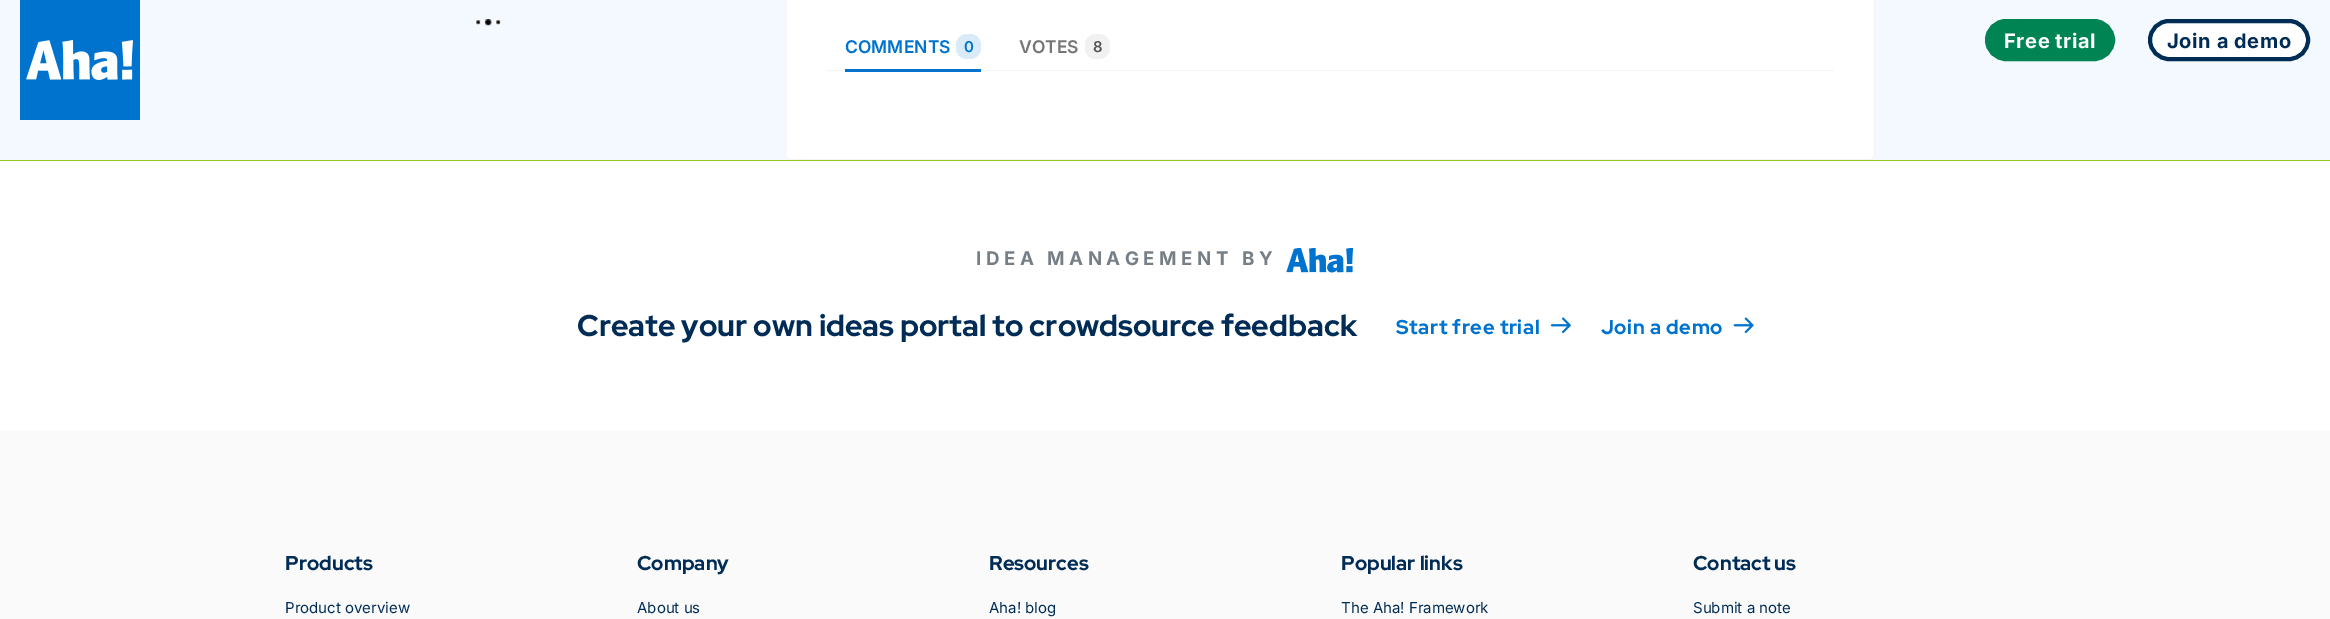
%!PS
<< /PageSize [2330 619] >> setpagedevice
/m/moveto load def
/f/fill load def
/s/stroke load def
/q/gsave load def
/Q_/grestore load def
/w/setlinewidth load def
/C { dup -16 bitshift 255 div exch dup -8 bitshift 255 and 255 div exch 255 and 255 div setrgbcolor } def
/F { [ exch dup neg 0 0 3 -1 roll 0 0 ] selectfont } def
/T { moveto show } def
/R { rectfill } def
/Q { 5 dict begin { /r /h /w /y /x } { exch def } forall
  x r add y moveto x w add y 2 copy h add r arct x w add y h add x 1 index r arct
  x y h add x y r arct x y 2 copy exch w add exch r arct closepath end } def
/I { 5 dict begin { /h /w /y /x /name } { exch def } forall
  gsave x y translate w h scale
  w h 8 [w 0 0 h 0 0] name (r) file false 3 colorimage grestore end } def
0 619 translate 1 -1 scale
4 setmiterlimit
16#F3F9FE C
0 0 2330 619 R
(1.rgb) 475 19 26 7 I
16#FFFFFF C
785.5 -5.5 1089 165 4.5 Q q f Q_
16#F4F4F4 C
s
826 70 1008 1 R
16#0073CF C
845 69 136 3 R
/Inter-SemiBold 17.5 F
(COMMENTS) 845 53 T
16#D9EAF8 C
956 34 25 25 11 Q f
/Inter-SemiBold 15 F
16#0073CF C
(0) 964 52 T
/Inter-SemiBold 17.5 F
16#767676 C
(VOTES) 1019 53 T
16#F1F1F1 C
1085 34 25 25 11 Q f
/Inter-SemiBold 15 F
16#555555 C
(8) 1093 52 T
16#FFFFFF C
0 161 2330 270 R
16#90C91D C
0 160 2330 1 R
/Inter-Bold 18.75 F
16#767E86 C
976 265 m 4.5 0 (IDEA MANAGEMENT BY) ashow
(2.rgb) 1286 248 68 25 I
/RedHatDisplay-Bold 30 F
16#002C55 C
(Create your own ideas portal to crowdsource feedback) 577 336 T
/RedHatDisplay-Bold 20 F
16#0073CF C
1396 334 m .6 0 (Start free trial) ashow
(3.rgb) 1550 317 21 16 I
1601 334 m .6 0 (Join a demo) ashow
(4.rgb) 1733 317 21 16 I
16#FAFAFA C
0 431 2330 188 R
/RedHatDisplay-ExtraBold 20 F
16#002C55 C
(Products) 285 570 T
/Inter-Regular 15 F
(Product overview) 285 613 T
/RedHatDisplay-ExtraBold 20 F
(Company) 637 570 T
/Inter-Regular 15 F
(About us) 637 613 T
/RedHatDisplay-ExtraBold 20 F
(Resources) 989 570 T
/Inter-Regular 15 F
(Aha! blog) 989 613 T
/RedHatDisplay-ExtraBold 20 F
(Popular links) 1341 570 T
/Inter-Regular 15 F
(The Aha! Framework) 1341 613 T
/RedHatDisplay-ExtraBold 20 F
(Contact us) 1693 570 T
/Inter-Regular 15 F
(Submit a note) 1693 613 T
16#0073CF C
20 0 120 120 R
(5.rgb) 26 40 107 40 I
16#018454 C
1987 21 126 38 19 Q q f Q_
4 w
s
/Inter-Bold 20 F
16#FFFFFF C
2004 48 m .6 0 (Free trial) ashow
2150 21 158 38 19 Q q f Q_
16#002D56 C
s
16#002C55 C
2167 48 m .6 0 (Join a demo) ashow
showpage
